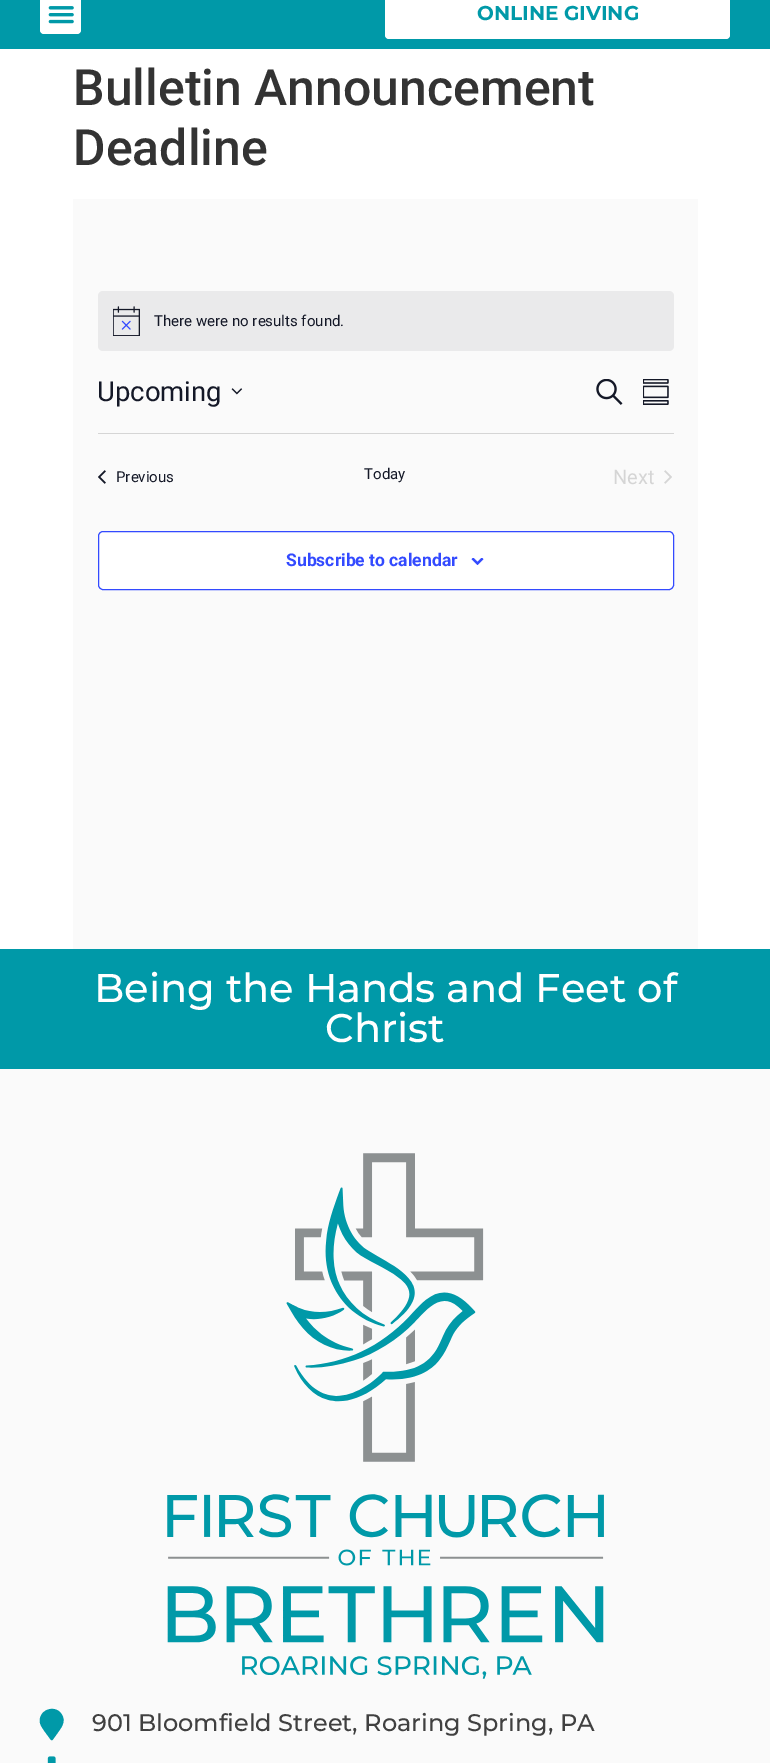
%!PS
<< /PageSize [770 1763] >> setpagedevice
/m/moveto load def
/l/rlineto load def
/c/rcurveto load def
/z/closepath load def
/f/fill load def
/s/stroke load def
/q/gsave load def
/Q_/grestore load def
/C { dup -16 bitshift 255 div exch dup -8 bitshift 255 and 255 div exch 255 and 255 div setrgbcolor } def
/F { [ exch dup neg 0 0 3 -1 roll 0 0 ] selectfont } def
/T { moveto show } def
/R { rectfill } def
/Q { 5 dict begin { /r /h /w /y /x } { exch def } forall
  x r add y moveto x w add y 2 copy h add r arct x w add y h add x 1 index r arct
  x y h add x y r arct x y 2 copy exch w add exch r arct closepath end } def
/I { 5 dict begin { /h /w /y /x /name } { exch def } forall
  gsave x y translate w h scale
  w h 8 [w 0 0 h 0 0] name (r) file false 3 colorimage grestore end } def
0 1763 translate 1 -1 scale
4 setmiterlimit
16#FFFFFF C
0 0 770 1763 R
16#0099A8 C
0 0 770 49 R
16#FFFFFF C
40 -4 41 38 4 Q f
(1.rgb) 48 6 26 18 I
385 -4 345 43 4 Q f
/Montserrat-Bold 20 F
16#0099A8 C
(ONLINE GIVING) 477 20 T
/Roboto-Medium 50 F
16#333333 C
(Bulletin Announcement) 73 105 T
(Deadline) 73 165 T
16#FAFAFA C
73 199 625 750 R
16#EAEAEB C
98 291 576 60 5 Q f
(2.rgb) 113 306 27 30 I
/Roboto-Regular 15 F
16#141827 C
(There were no results found.) 154 326 T
/Roboto-Regular 27.5 F
(Upcoming) 97 401 T
(3.rgb) 231 388 12 7 I
(4.rgb) 596 379 27 26 I
(5.rgb) 643 379 26 26 I
16#D5D5D5 C
98 433 576 1 R
(6.rgb) 98 470 8 14 I
/Roboto-Regular 15 F
16#141827 C
(Previous) 116 482 T
(Today) 364 479 T
/Roboto-Regular 20 F
16#D5D5D5 C
(Next) 613 484 T
(7.rgb) 664 470 8 14 I
16#FFFFFF C
98.5 531.5 575 58 4.5 Q q f Q_
16#334AFF C
s
/Roboto-Bold 17.5 F
(Subscribe to calendar) 286 566 T
(8.rgb) 471 558 13 7 I
16#0099A8 C
0 949 770 120 R
/Montserrat-Medium 40 F
16#FFFFFF C
(Being the Hands and Feet of) 94 1002 T
(Christ) 325 1042 T
16#FAFAFA C
0 1069 770 694 R
(9.rgb) 167 1153 437 526 I
16#0099A8 C
50.5 1739.5 m -2.5 -4 -9.5 -12 -10.5 -16.5 c -2.5 -12.5 14.5 -19.5 21.5 -9 c 5.5 8 -1 14.5 -5 20.5 c -4 5.5 l -.5 .5 -1.5 0 -2 -.5 c z f
/Montserrat-Medium 24 F
16#404040 C
(901 Bloomfield Street, Roaring Spring, PA) 92 1731 T
(10.rgb) 47 1756 9 7 I
showpage
